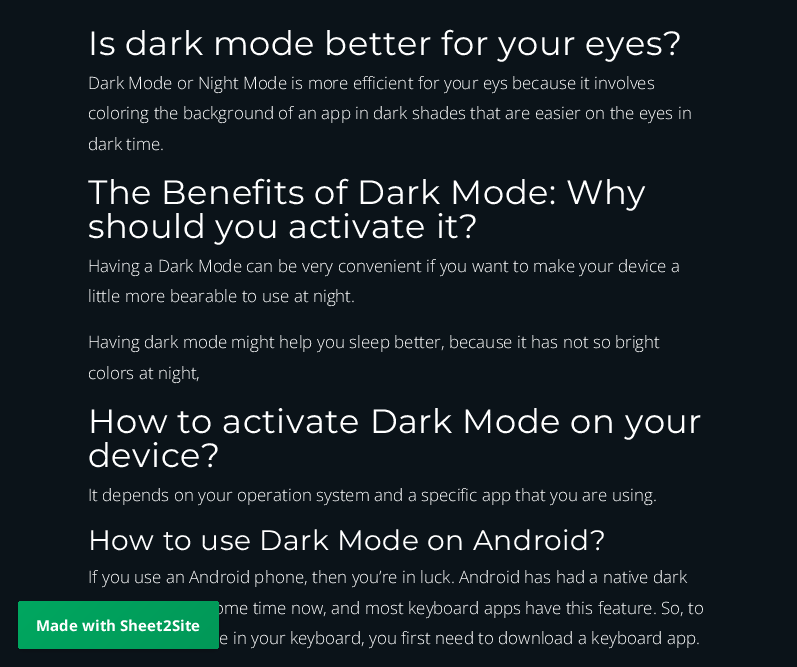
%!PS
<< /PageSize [797 667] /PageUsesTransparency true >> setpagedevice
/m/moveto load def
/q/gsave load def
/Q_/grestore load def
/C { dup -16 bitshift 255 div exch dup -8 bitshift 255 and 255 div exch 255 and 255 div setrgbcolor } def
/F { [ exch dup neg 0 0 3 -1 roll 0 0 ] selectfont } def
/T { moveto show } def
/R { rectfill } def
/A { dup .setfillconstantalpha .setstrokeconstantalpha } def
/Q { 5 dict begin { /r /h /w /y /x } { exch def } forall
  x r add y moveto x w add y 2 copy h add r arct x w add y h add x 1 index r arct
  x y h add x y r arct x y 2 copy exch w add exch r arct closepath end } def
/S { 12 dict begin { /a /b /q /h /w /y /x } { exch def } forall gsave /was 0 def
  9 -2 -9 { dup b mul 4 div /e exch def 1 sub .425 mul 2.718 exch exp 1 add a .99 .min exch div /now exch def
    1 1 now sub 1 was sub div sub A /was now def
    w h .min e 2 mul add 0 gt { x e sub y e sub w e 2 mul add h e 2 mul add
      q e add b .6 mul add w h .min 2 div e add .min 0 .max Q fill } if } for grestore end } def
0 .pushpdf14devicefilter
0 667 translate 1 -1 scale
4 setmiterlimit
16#0B1319 C
0 0 797 667 R
/Montserrat-Thin 33.75 F
16#FFFFFF C
88 55 m .5 0 (Is dark mode better for your eyes?) ashow
/OpenSans-Light 17 F
(Dark Mode or Night Mode is more efficient for your eys because it involves) 88 89 T
(coloring the background of an app in dark shades that are easier on the eyes in) 88 119 T
(dark time.) 88 150 T
/Montserrat-Thin 33.75 F
88 204 m .5 0 (The Benefits of Dark Mode: Why) ashow
88 238 m .5 0 (should you activate it?) ashow
/OpenSans-Light 17 F
(Having a Dark Mode can be very convenient if you want to make your device a) 88 272 T
(little more bearable to use at night.) 88 302 T
(Having dark mode might help you sleep better, because it has not so bright) 88 348 T
(colors at night,) 88 379 T
/Montserrat-Thin 33.75 F
88 433 m .5 0 (How to activate Dark Mode on your) ashow
88 467 m .5 0 (device?) ashow
/OpenSans-Light 17 F
(It depends on your operation system and a specific app that you are using.) 88 501 T
/Montserrat-Thin 28.1 F
88 550 m .5 0 (How to use Dark Mode on Android?) ashow
/OpenSans-Light 17 F
(If you use an Android phone, then you’re in luck. Android has had a native dark) 88 583 T
(ome time now, and most keyboard apps have this feature. So, to) 214 614 T
(e in your keyboard, you first need to download a keyboard app.) 219 644 T
16#000000 C
18 603 201 48 4 2.5 .2 S
q 18 601 201 48 4 Q clip newpath
<< /ShadingType 2 /ColorSpace /DeviceRGB /Coords [56 563 181 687] /Extend [true true] /Function << /FunctionType 2 /Domain [0 1] /C0 [0 .655 .376] /C1 [.008 .596 .345] /N 1 >> >> shfill Q_
/OpenSans-Bold 15 F
16#FFFFFF C
36 631 m .1 0 (Made with Sheet2Site) ashow
.poppdf14devicefilter showpage
